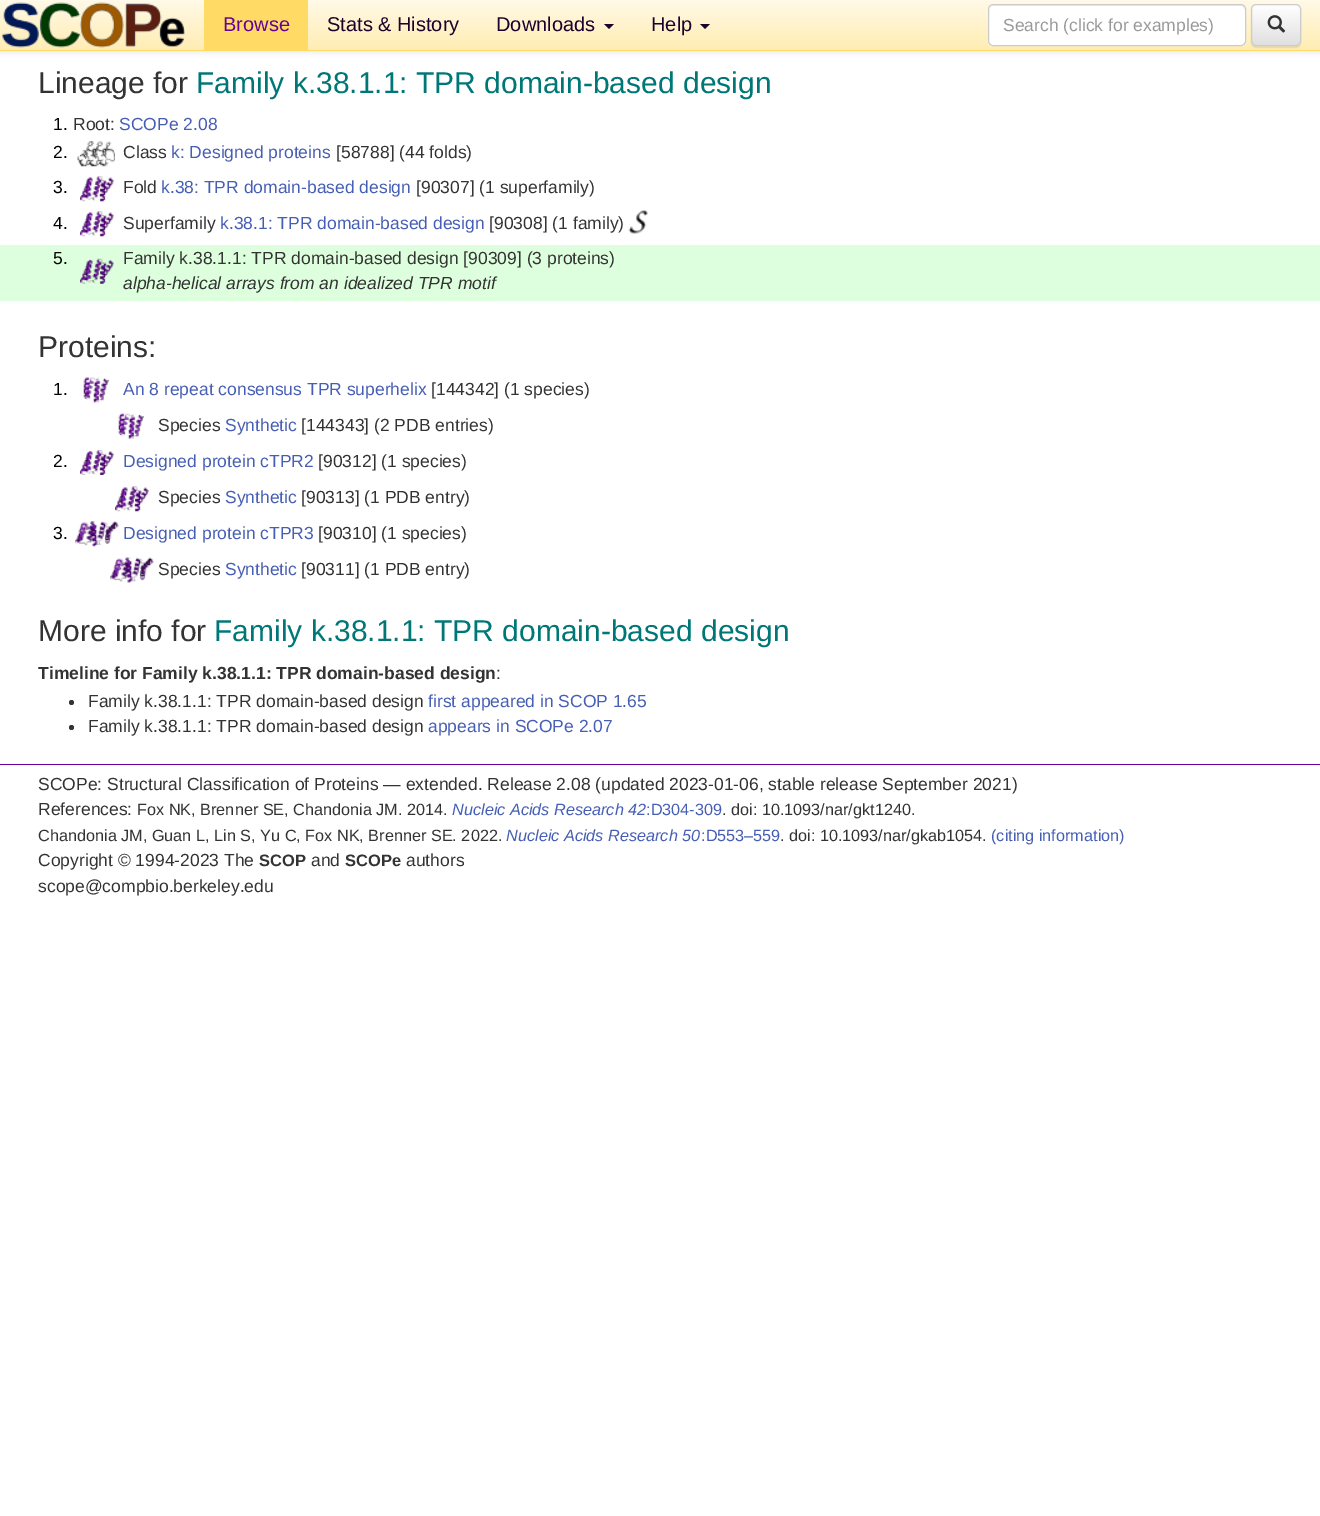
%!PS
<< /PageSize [1320 1516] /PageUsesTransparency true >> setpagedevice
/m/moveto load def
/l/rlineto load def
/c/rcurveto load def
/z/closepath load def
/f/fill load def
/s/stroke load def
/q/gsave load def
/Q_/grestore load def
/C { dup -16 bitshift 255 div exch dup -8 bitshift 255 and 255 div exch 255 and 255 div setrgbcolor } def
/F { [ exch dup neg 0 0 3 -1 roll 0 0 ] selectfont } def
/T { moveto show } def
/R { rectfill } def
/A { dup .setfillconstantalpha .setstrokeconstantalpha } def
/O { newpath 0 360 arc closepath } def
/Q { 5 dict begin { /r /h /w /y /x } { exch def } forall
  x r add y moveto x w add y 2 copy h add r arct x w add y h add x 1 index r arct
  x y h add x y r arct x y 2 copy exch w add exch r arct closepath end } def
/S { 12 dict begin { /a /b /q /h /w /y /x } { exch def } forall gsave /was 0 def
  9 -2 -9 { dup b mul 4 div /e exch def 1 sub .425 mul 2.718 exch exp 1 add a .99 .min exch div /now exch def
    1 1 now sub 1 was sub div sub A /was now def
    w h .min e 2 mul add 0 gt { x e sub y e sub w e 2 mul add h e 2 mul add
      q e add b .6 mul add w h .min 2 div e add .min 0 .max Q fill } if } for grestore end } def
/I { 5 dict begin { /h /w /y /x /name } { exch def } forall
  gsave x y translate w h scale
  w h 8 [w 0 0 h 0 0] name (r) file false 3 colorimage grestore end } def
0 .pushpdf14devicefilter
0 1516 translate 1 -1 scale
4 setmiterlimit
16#FFFFFF C
0 0 1320 1516 R
16#000000 C
0 1 1320 52 0 3 .07 S
q 0 1 m 1320 0 l 0 49 l -1320 0 l z clip newpath
<< /ShadingType 2 /ColorSpace /DeviceRGB /Coords [660 0 660 50] /Extend [true true] /Function << /FunctionType 2 /Domain [0 1] /C0 [1 .976 .902] /C1 [1 .929 .702] /N 1 >> >> shfill Q_
16#FFFAE9 C
0 0 1320 1 R
16#FFDA65 C
0 50 1320 1 R
(1.rgb) 2 2 183 46 I
204 0 104 50 R
/LiberationSans-Regular 20 F
16#660099 C
(Browse) 223 31 T
16#1D002B C
(Stats & History) 327 31 T
(Downloads) 496 31 T
604 24 m 10 0 l -5 5 l z f
(Help) 651 31 T
700 24 m 10 0 l -5 5 l z f
16#FFFFFF C
988 4 258 42 5 Q f
16#ECECEC C
992 6 m 250 0 l 2 2 l 1 2 l 0 -1 l 0 -2 -2 -4 -4 -4 c -248 0 l -2 0 -4 2 -4 4 c 0 1 l 0 -2 1 -4 3 -4 c z f
16#CCCCCC C
988.5 4.5 257 41 4.5 Q s
/LiberationSans-Regular 17.5 F
16#999999 C
(Search \(click for examples\)) 1003 31 T
16#000000 C
1251 5 50 43 5 .5 .07 S
q
1251 4 50 42 5 Q clip newpath
q 1251 5 m 50 0 l 0 40 l -50 0 l z clip newpath
<< /ShadingType 2 /ColorSpace /DeviceRGB /Coords [1276 5 1276 45] /Extend [true true] /Function << /FunctionType 2 /Domain [0 1] /C0 [1 1 1] /C1 [.878 .878 .878] /N 1 >> >> shfill Q_
Q_
16#CCCCCC C
1251.5 4.5 49 41 4.5 Q s
(2.rgb) 1267 15 19 18 I
/LiberationSans-Regular 30 F
16#333333 C
(Lineage for) 38 93 T
16#007777 C
(Family k.38.1.1: TPR domain-based design) 196 93 T
/LiberationSans-Regular 17.5 F
16#000000 C
(1.) 53 130 T
16#333333 C
(Root:) 73 130 T
16#465EB4 C
(SCOPe 2.08) 119 130 T
16#000000 C
(2.) 53 158 T
(3.rgb) 77 141 38 26 I
16#333333 C
(Class) 123 158 T
16#465EB4 C
(k: Designed proteins) 171 158 T
16#333333 C
([58788] \(44 folds\)) 336 158 T
16#000000 C
(3.) 53 193 T
(4.rgb) 80 176 34 26 I
16#333333 C
(Fold) 123 193 T
16#465EB4 C
(k.38: TPR domain-based design) 161 193 T
16#333333 C
([90307] \(1 superfamily\)) 416 193 T
16#000000 C
(4.) 53 229 T
(4.rgb) 80 211 34 26 I
16#333333 C
(Superfamily) 123 229 T
16#465EB4 C
(k.38.1: TPR domain-based design) 220 229 T
16#333333 C
([90308] \(1 family\)) 489 229 T
(5.rgb) 628 210 20 24 I
16#DDFFDD C
0 245 1320 56 R
16#000000 C
(5.) 53 264 T
(6.rgb) 80 258 34 26 I
16#333333 C
(Family k.38.1.1: TPR domain-based design [90309] \(3 proteins\)) 123 264 T
/LiberationSans-Italic 17.5 F
(alpha-helical arrays from an idealized TPR motif) 123 289 T
/LiberationSans-Regular 30 F
(Proteins:) 38 357 T
/LiberationSans-Regular 17.5 F
16#000000 C
(1.) 53 395 T
(7.rgb) 83 377 26 26 I
16#465EB4 C
(An 8 repeat consensus TPR superhelix) 123 395 T
16#333333 C
([144342] \(1 species\)) 431 395 T
(8.rgb) 118 413 26 26 I
(Species) 158 431 T
16#465EB4 C
(Synthetic) 225 431 T
16#333333 C
([144343] \(2 PDB entries\)) 301 431 T
16#000000 C
(2.) 53 467 T
(9.rgb) 80 450 34 25 I
16#465EB4 C
(Designed protein cTPR2) 123 467 T
16#333333 C
([90312] \(1 species\)) 318 467 T
(4.rgb) 115 486 34 26 I
(Species) 158 503 T
16#465EB4 C
(Synthetic) 225 503 T
16#333333 C
([90313] \(1 PDB entry\)) 301 503 T
16#000000 C
(3.) 53 539 T
(10.rgb) 75 521 44 26 I
16#465EB4 C
(Designed protein cTPR3) 123 539 T
16#333333 C
([90310] \(1 species\)) 318 539 T
(11.rgb) 110 557 44 26 I
(Species) 158 575 T
16#465EB4 C
(Synthetic) 225 575 T
16#333333 C
([90311] \(1 PDB entry\)) 301 575 T
/LiberationSans-Regular 30 F
(More info for) 38 641 T
16#007777 C
(Family k.38.1.1: TPR domain-based design) 214 641 T
/LiberationSans-Bold 17.5 F
16#333333 C
(Timeline for Family k.38.1.1: TPR domain-based design) 38 679 T
/LiberationSans-Regular 17.5 F
(:) 496 679 T
71.5 702.5 2.5 O f
(Family k.38.1.1: TPR domain-based design) 88 707 T
16#465EB4 C
(first appeared in SCOP 1.65) 428 707 T
16#333333 C
71.5 727.5 2.5 O f
(Family k.38.1.1: TPR domain-based design) 88 732 T
16#465EB4 C
(appears in SCOPe 2.07) 428 732 T
16#660099 C
0 764 1320 1 R
16#333333 C
(SCOPe: Structural Classification of Proteins — extended. Release 2.08 \(updated 2023-01-06, stable release September 2021\)) 38 790 T
(References:) 38 815 T
/LiberationSans-Regular 16.25 F
(Fox NK, Brenner SE, Chandonia JM. 2014.) 137 815 T
/LiberationSans-Italic 16.25 F
16#465EB4 C
(Nucleic Acids Research 42) 452 815 T
/LiberationSans-Regular 16.25 F
(:D304-309) 646 815 T
16#333333 C
(. doi: 10.1093/nar/gkt1240.) 722 815 T
(Chandonia JM, Guan L, Lin S, Yu C, Fox NK, Brenner SE. 2022.) 38 841 T
/LiberationSans-Italic 16.25 F
16#465EB4 C
(Nucleic Acids Research 50) 506 841 T
/LiberationSans-Regular 16.25 F
(:D553–559) 701 841 T
16#333333 C
(. doi: 10.1093/nar/gkab1054.) 780 841 T
16#465EB4 C
(\(citing information\)) 991 841 T
/LiberationSans-Regular 17.5 F
16#333333 C
(Copyright © 1994-2023 The) 38 866 T
/LiberationSans-Bold 16.5 F
(SCOP) 259 866 T
/LiberationSans-Regular 17.5 F
(and) 311 866 T
/LiberationSans-Bold 16.5 F
(SCOPe) 345 866 T
/LiberationSans-Regular 17.5 F
(authors) 406 866 T
(scope@compbio.berkeley.edu) 38 892 T
.poppdf14devicefilter showpage
